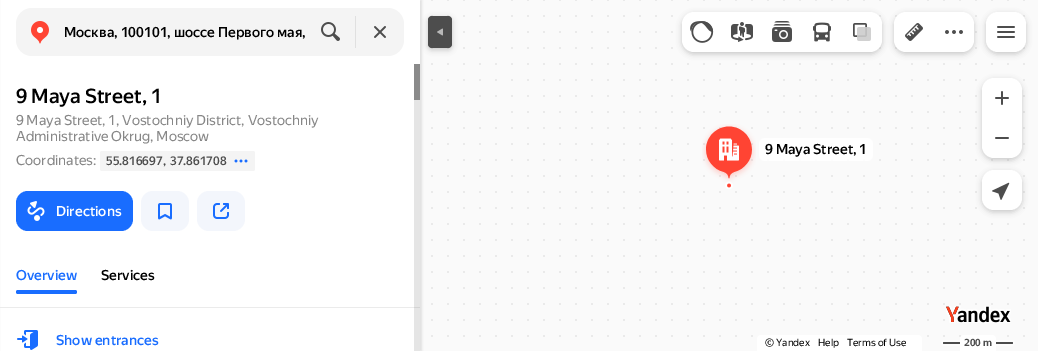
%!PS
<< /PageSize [1038 351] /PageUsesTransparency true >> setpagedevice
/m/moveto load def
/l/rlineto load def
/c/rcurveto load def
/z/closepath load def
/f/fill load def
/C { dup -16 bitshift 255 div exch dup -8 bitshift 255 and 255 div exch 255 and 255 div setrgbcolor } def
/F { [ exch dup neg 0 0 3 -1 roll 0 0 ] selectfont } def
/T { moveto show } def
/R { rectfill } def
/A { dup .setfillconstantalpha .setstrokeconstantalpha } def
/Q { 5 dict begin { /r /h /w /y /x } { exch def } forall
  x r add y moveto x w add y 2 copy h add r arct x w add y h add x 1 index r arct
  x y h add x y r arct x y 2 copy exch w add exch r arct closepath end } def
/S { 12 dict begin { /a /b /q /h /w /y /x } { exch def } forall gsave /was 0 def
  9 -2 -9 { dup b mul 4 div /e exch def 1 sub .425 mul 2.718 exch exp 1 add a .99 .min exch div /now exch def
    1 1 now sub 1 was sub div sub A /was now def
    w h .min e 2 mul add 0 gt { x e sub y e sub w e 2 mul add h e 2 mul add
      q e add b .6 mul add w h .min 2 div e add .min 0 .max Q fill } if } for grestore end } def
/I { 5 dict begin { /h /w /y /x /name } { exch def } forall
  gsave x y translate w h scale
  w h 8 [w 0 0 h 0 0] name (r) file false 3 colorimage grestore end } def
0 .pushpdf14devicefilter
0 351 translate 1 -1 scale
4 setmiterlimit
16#FFFFFF C
0 0 1038 351 R
(1.rgb) 420 0 618 351 I
16#000000 C
2 0 420 351 0 1 .1 S
428 18 24 32 4 3 .2 S
16#FFFFFF C
1 0 419 351 R
16#F4F4F4 C
16 8 388 48 16 Q f
(2.rgb) 31 21 18 23 I
/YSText-Medium 14 F
16#000000 C
(Москва, 100101, шоссе Первого мая,) 64 37 T
(3.rgb) 321 22 19 19 I
16#E0E0E0 C
355 16 1 32 R
(4.rgb) 374 26 12 12 I
16#000000 C
682 14 200 40 12 3 .2 S
16#FFFFFF C
694 12 m 28 0 l 0 40 l -28 0 l -6.5 0 -12 -5.5 -12 -12 c 0 -16 l 0 -6.5 5.5 -12 12 -12 c z f
(5.rgb) 690 21 24 22 I
722 12 120 40 R
(6.rgb) 731 22 22 20 I
842 12 m 28 0 l 6.5 0 12 5.5 12 12 c 0 16 l 0 6.5 -5.5 12 -12 12 c -28 0 l z f
(7.rgb) 853 23 18 18 I
(8.rgb) 772 21 20 21 I
(9.rgb) 813 22 18 20 I
16#000000 C
894 14 80 40 12 3 .2 S
16#FFFFFF C
906 12 m 28 0 l 0 40 l -28 0 l -6.5 0 -12 -5.5 -12 -12 c 0 -16 l 0 -6.5 5.5 -12 12 -12 c z f
(10.rgb) 905 23 18 18 I
934 12 m 28 0 l 6.5 0 12 5.5 12 12 c 0 16 l 0 6.5 -5.5 12 -12 12 c -28 0 l z f
(11.rgb) 945 30 18 4 I
16#000000 C
986 14 40 40 12 3 .2 S
16#FFFFFF C
986 12 40 40 12 Q f
(12.rgb) 997 26 18 12 I
16#000000 C
982 80 40 80 12 3 .2 S
16#FFFFFF C
994 78 m 16 0 l 6.5 0 12 5.5 12 12 c 0 28 l -40 0 l 0 -28 l 0 -6.5 5.5 -12 12 -12 c z f
(13.rgb) 995 91 14 14 I
982 118 m 40 0 l 0 28 l 0 6.5 -5.5 12 -12 12 c -16 0 l -6.5 0 -12 -5.5 -12 -12 c z f
(14.rgb) 995 137 14 2 I
16#000000 C
982 172 40 40 12 3 .2 S
16#FFFFFF C
982 170 40 40 12 Q f
(15.rgb) 992 182 18 18 I
16#4D4D4D C
428 16 24 32 4 Q f
(16.rgb) 437 28 6 8 I
/YSText-Medium 20 F
16#000000 C
(9 Maya Street, 1) 16 103 T
/YSText-Regular 14 F
16#878787 C
(9 Maya Street, 1, Vostochniy District, Vostochniy) 16 125 T
(Administrative Okrug, Moscow) 16 141 T
(Coordinates:) 16 165 T
16#F4F4F4 C
100 151 155 20 2 Q f
/YSText-Medium 12 F
16#4D4D4D C
106 165 m -1 0 32 (55.816697,) widthshow
170 165 m -1 0 32 (37.861708) widthshow
(17.rgb) 234 159 14 4 I
16#196DFF C
16 191 117 40 12 Q f
(18.rgb) 27 201 18 20 I
/YSText-Medium 14 F
16#FFFFFF C
(Directions) 56 216 T
16#F3F6FC C
141 191 48 40 12 Q f
(19.rgb) 158 203 14 17 I
197 191 48 40 12 Q f
(20.rgb) 213 203 16 16 I
16#196DFF C
(Overview) 16 280 T
16#000000 C
(Services) 101 280 T
16#196DFF C
16 290 61 4 2 Q f
16#EBEBEB C
0 307 420 1 R
(21.rgb) 17 330 21 20 I
16#196DFF C
(Show entrances) 56 345 T
16#8A8A8A C
414 64 6 36 R
0.1 A
16#000000 C
414 100 6 251 R
1 A
(22.rgb) 946 306 65 17 I
16#FFFFFF C
761 335 m 157 0 l 2 0 4 2 4 4 c 0 12 l -165 0 l 0 -12 l 0 -2 2 -4 4 -4 c z f
/YSText-Regular 10 F
16#000000 C
(© Yandex) 765 346 T
(Help) 818 346 T
(Terms of Use) 847 346 T
16#FDFDFD C
941 340 74 6 3 Q f
16#4D4D4D C
943 342 70 2 1 Q f
16#FFFFFF C
964 335 m 28 0 l 2 0 4 2 4 4 c 0 12 l -36 0 l 0 -12 l 0 -2 2 -4 4 -4 c z f
/YSText-Bold 10 F
16#4D4D4D C
(200 m) 964 346 T
(23.rgb) 702 124 54 65 I
(24.rgb) 719 138 20 23 I
0.9 A
16#FFFFFF C
759 138 114 23 6 Q f
/YSText-Medium 14 F
1 A
16#000000 C
(9 Maya Street, 1) 765 154 T
.poppdf14devicefilter showpage
